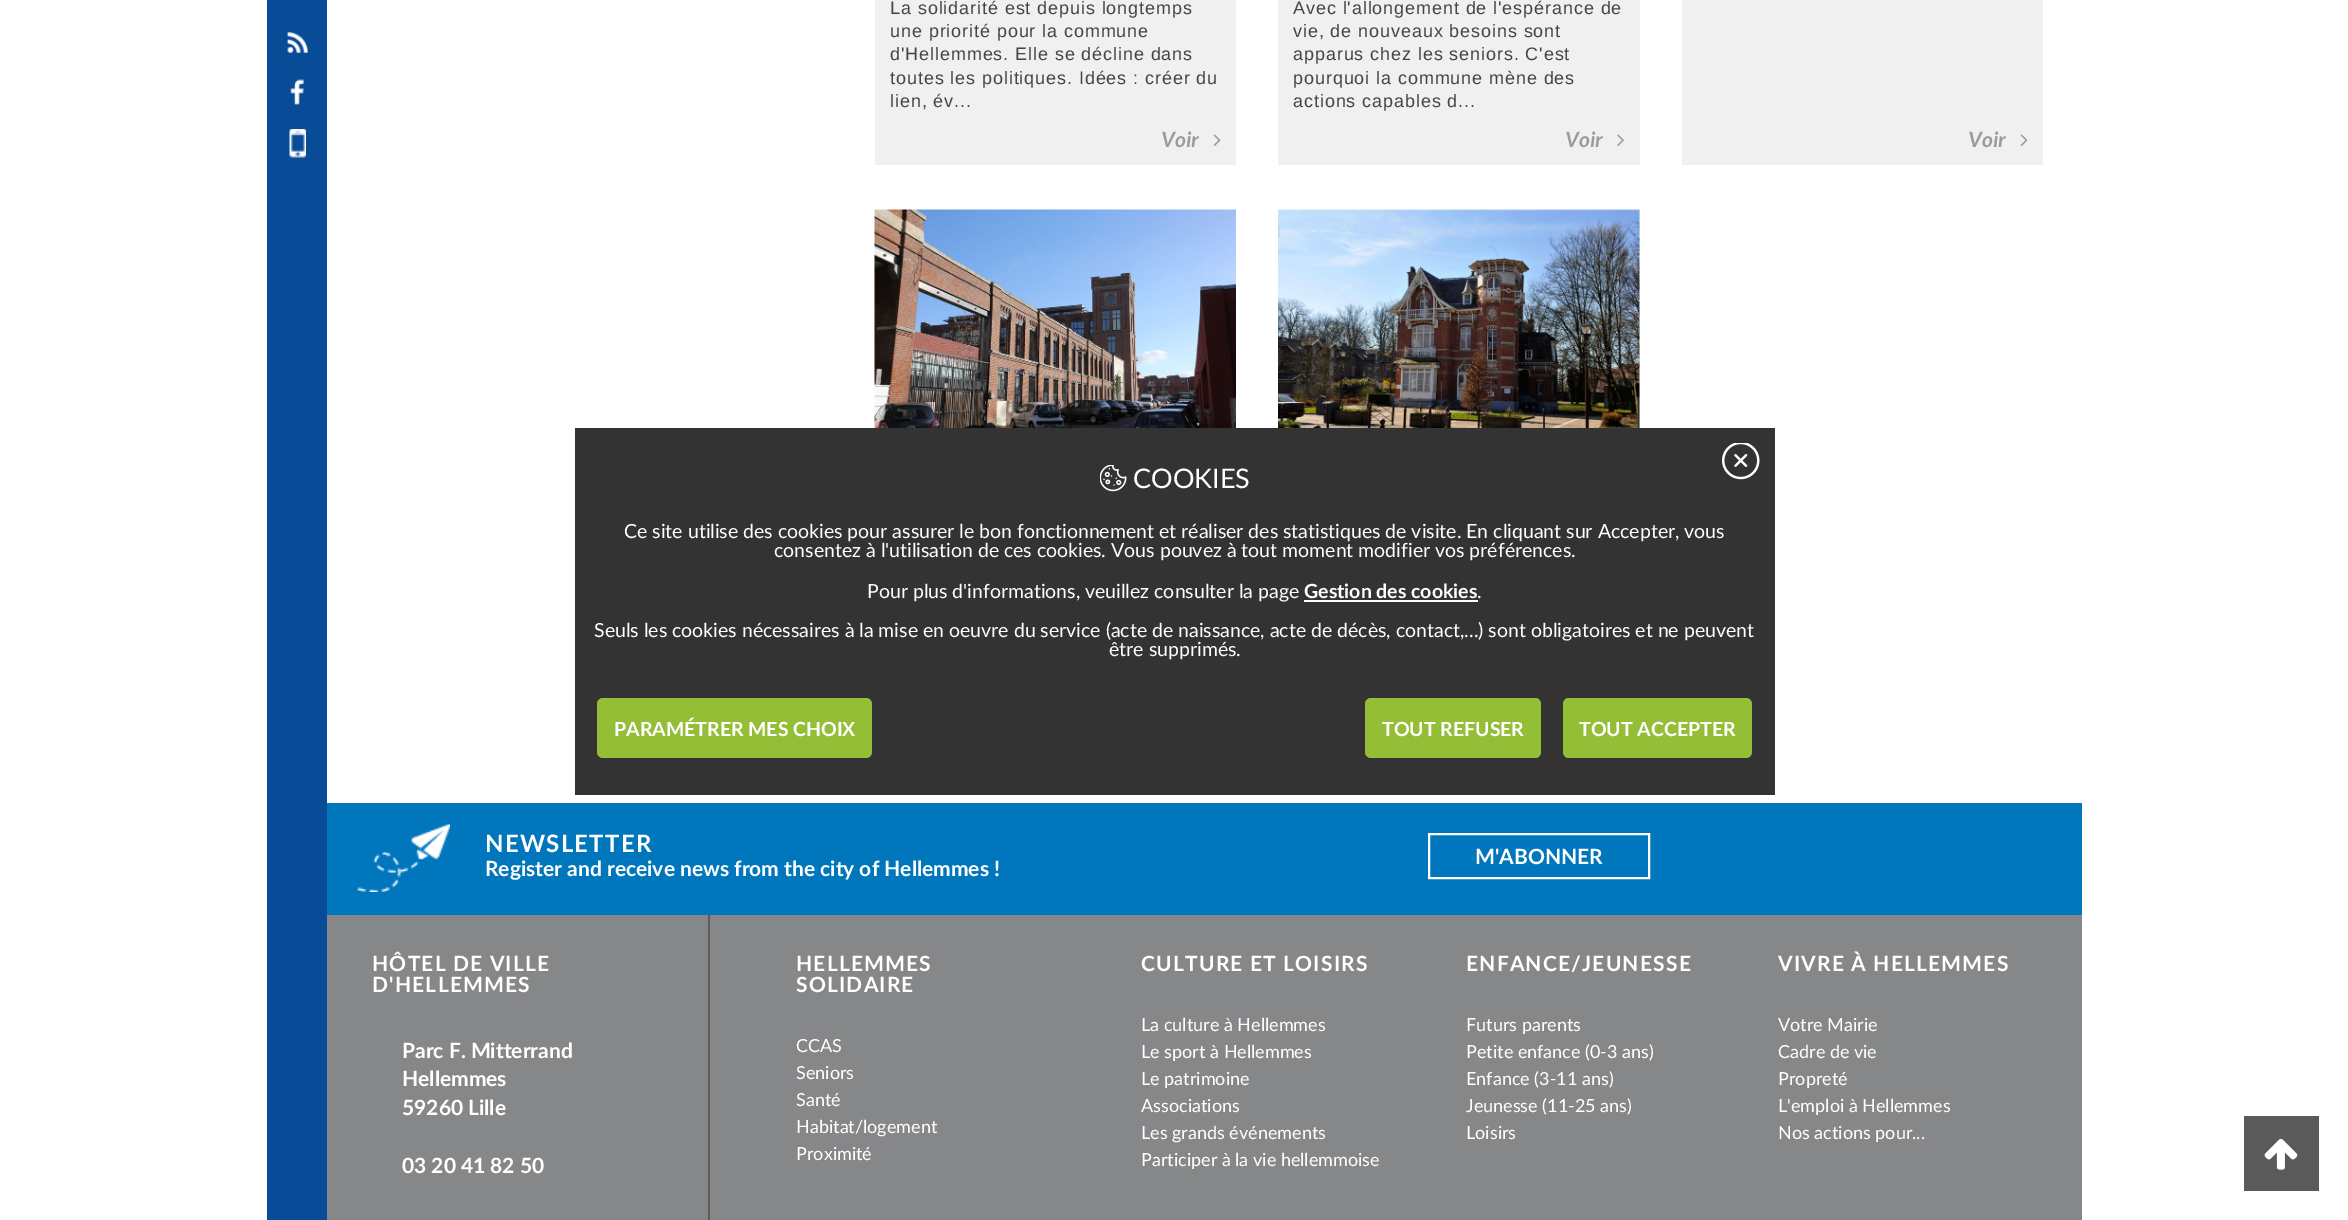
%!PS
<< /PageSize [2348 1220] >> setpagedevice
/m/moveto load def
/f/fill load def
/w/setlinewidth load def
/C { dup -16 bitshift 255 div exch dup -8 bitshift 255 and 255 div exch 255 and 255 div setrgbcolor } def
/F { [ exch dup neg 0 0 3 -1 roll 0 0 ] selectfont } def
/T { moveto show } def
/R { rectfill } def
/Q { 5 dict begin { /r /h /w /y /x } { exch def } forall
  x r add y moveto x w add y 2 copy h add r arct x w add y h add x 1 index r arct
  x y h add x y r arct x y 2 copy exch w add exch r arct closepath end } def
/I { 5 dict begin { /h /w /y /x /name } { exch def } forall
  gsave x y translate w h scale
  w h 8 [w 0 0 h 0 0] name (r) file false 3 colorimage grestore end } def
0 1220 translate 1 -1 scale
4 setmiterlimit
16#FFFFFF C
0 0 2348 1220 R
16#084C97 C
267 0 60 1220 R
(1.rgb) 287 32 21 21 I
(2.rgb) 290 79 14 26 I
(3.rgb) 289 129 17 29 I
16#F0F0F0 C
875 0 361 165 R
/LiberationSans-Regular 18 F
16#454545 C
890 14 m .9 0 (La solidarité est depuis longtemps) ashow
890 37 m .9 0 (une priorité pour la commune) ashow
890 60 m .9 0 (d'Hellemmes. Elle se décline dans) ashow
890 84 m .9 0 (toutes les politiques. Idées : créer du) ashow
890 107 m .9 0 (lien, év...) ashow
/Lato-BoldItalic 21 F
16#9B9B9B C
(Voir) 1161 147 T
(4.rgb) 1213 134 8 12 I
16#F0F0F0 C
1278 0 362 165 R
/LiberationSans-Regular 18 F
16#454545 C
1293 14 m .9 0 (Avec l'allongement de l'espérance de) ashow
1293 37 m .9 0 (vie, de nouveaux besoins sont) ashow
1293 60 m .9 0 (apparus chez les seniors. C'est) ashow
1293 84 m .9 0 (pourquoi la commune mène des) ashow
1293 107 m .9 0 (actions capables d...) ashow
/Lato-BoldItalic 21 F
16#9B9B9B C
(Voir) 1565 147 T
(5.rgb) 1617 134 7 12 I
16#F0F0F0 C
1682 0 361 165 R
16#9B9B9B C
(Voir) 1968 147 T
(4.rgb) 2020 134 8 12 I
(6.rgb) 874 209 362 219 I
16#F0F0F0 C
1639 210 1 218 R
(7.rgb) 1278 209 362 219 I
16#333333 C
575 428 1200 367 R
(8.rgb) 1100 465 27 27 I
/Lato-Regular 27 F
16#FFFFFF C
(COOKIES) 1133 488 T
(9.rgb) 1722 443 38 37 I
/Lato-Regular 19.5 F
(Ce site utilise des cookies pour assurer le bon fonctionnement et réaliser des statistiques de visite. En cliquant sur Accepter, vous) 624 538 T
(consentez à l'utilisation de ces cookies. Vous pouvez à tout moment modifier vos préférences.) 774 557 T
(Pour plus d'informations, veuillez consulter la page) 867 598 T
/Lato-Bold 19.5 F
(Gestion des cookies) 1304 598 T
1304 600 174 2 R
/Lato-Regular 19.5 F
(.) 1477 598 T
(Seuls les cookies nécessaires à la mise en oeuvre du service \(acte de naissance, acte de décès, contact,...\) sont obligatoires et ne peuvent) 594 637 T
(être supprimés.) 1109 656 T
16#95BE37 C
597 698 275 60 6 Q f
/Lato-Bold 19.5 F
16#FFFFFF C
(PARAMÉTRER MES CHOIX) 614 736 T
16#95BE37 C
1365 698 176 60 6 Q f
16#FFFFFF C
(TOUT REFUSER) 1382 736 T
16#95BE37 C
1563 698 189 60 6 Q f
16#FFFFFF C
(TOUT ACCEPTER) 1579 736 T
16#0076BC C
327 803 1755 112 R
(10.rgb) 357 824 93 68 I
/Lato-Bold 24 F
16#FFFFFF C
485 852 m 1.25 0 (NEWSLETTER) ashow
/Lato-Bold 21 F
(Register and receive news from the city of Hellemmes !) 485 876 T
2 w
1429 834 220 44 rectstroke
(M'ABONNER) 1475 864 T
16#868789 C
327 915 1755 305 R
16#5D5D5D C
708 915 2 305 R
16#FFFFFF C
372 971 m 1.2 0 (HÔTEL DE VILLE) ashow
372 992 m 1.2 0 (D'HELLEMMES) ashow
(Parc F. Mitterrand) 402 1058 T
(Hellemmes) 402 1086 T
(59260 Lille) 402 1115 T
(03 20 41 82 50) 402 1173 T
796 971 m 1.2 0 (HELLEMMES) ashow
796 992 m 1.2 0 (SOLIDAIRE) ashow
/Lato-Regular 18 F
(CCAS) 796 1052 T
(Seniors) 796 1079 T
(Santé) 796 1106 T
(Habitat/logement) 796 1133 T
(Proximité) 796 1160 T
/Lato-Bold 21 F
1141 971 m 1.2 0 (CULTURE ET LOISIRS) ashow
/Lato-Regular 18 F
(La culture à Hellemmes) 1141 1031 T
(Le sport à Hellemmes) 1141 1058 T
(Le patrimoine) 1141 1085 T
(Associations) 1141 1112 T
(Les grands événements) 1141 1139 T
(Participer à la vie hellemmoise) 1141 1166 T
/Lato-Bold 21 F
1466 971 m 1.2 0 (ENFANCE/JEUNESSE) ashow
/Lato-Regular 18 F
(Futurs parents) 1466 1031 T
(Petite enfance \(0-3 ans\)) 1466 1058 T
(Enfance \(3-11 ans\)) 1466 1085 T
(Jeunesse \(11-25 ans\)) 1466 1112 T
(Loisirs) 1466 1139 T
/Lato-Bold 21 F
1778 971 m 1.2 0 (VIVRE À HELLEMMES) ashow
/Lato-Regular 18 F
(Votre Mairie) 1778 1031 T
(Cadre de vie) 1778 1058 T
(Propreté) 1778 1085 T
(L'emploi à Hellemmes) 1778 1112 T
(Nos actions pour...) 1778 1139 T
16#5A5A5A C
2244 1116 75 75 R
(11.rgb) 2264 1138 34 32 I
showpage
